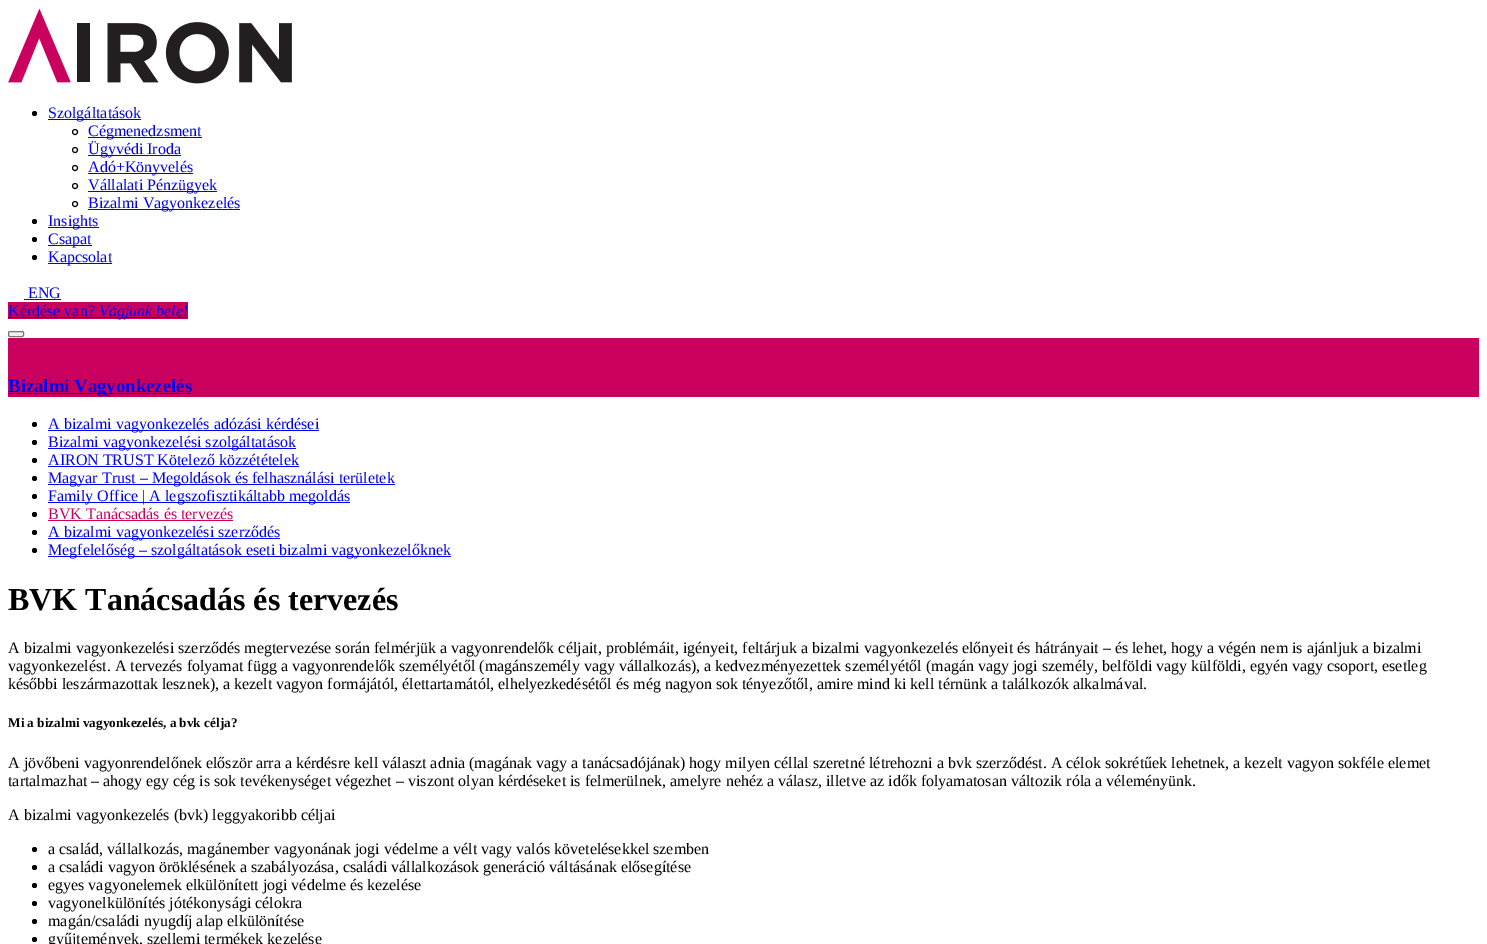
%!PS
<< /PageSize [1487 944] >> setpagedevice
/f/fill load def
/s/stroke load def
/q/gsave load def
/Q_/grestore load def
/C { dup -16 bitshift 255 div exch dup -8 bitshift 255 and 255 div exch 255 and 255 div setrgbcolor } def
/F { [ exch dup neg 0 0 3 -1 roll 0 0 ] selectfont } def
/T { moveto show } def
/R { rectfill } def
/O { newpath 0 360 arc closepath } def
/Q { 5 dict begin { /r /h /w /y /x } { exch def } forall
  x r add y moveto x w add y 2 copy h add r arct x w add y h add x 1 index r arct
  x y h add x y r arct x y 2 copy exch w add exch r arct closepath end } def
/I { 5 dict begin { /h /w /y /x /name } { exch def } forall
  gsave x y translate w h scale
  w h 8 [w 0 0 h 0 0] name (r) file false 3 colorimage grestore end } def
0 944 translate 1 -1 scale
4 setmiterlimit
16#FFFFFF C
0 0 1487 944 R
(1.rgb) 8 8 284 76 I
16#000000 C
34.5 113.5 2.5 O f
16#0000EE C
48 119 93 1 R
/LiberationSerif-Regular 16 F
(Szolgáltatások) 48 118 T
16#000000 C
75 132 2.5 O s
16#0000EE C
88 137 114 1 R
(Cégmenedzsment) 88 136 T
16#000000 C
75 150 2.5 O s
16#0000EE C
88 155 93 1 R
(Ügyvédi Iroda) 88 154 T
16#000000 C
75 168 2.5 O s
16#0000EE C
88 173 105 1 R
(Adó+Könyvelés) 88 172 T
16#000000 C
75 186 2.5 O s
16#0000EE C
88 191 129 1 R
(Vállalati Pénzügyek) 88 190 T
16#000000 C
75 204 2.5 O s
16#0000EE C
88 209 152 1 R
(Bizalmi Vagyonkezelés) 88 208 T
16#000000 C
34.5 221.5 2.5 O f
16#0000EE C
48 227 51 1 R
(Insights) 48 226 T
16#000000 C
34.5 239.5 2.5 O f
16#0000EE C
48 245 44 1 R
(Csapat) 48 244 T
16#000000 C
34.5 257.5 2.5 O f
16#0000EE C
48 263 64 1 R
(Kapcsolat) 48 262 T
(ENG) 28 298 T
24 299 37 1 R
16#CA005E C
8 302 180 17 R
16#0000EE C
(Kérdése van?) 8 316 T
8 317 180 1 R
/LiberationSerif-Italic 16 F
(Vágjunk bele!) 99 316 T
16#EFEFEF C
8.5 331.5 15 5 1.5 Q q f Q_
16#767676 C
s
16#CA005E C
8 338 1471 59 R
16#0000EE C
8 393 183 1 R
/LiberationSerif-Bold 18.75 F
(Bizalmi Vagyonkezelés) 8 392 T
16#000000 C
34.5 424.5 2.5 O f
16#0000EE C
48 430 271 1 R
/LiberationSerif-Regular 16 F
(A bizalmi vagyonkezelés adózási kérdései) 48 429 T
16#000000 C
34.5 442.5 2.5 O f
16#0000EE C
48 448 248 1 R
(Bizalmi vagyonkezelési szolgáltatások) 48 447 T
16#000000 C
34.5 460.5 2.5 O f
16#0000EE C
(AIRON TRUST Kötelező közzétételek) 48 465 T
48 466 251 1 R
16#000000 C
34.5 478.5 2.5 O f
16#0000EE C
48 484 347 1 R
(Magyar Trust – Megoldások és felhasználási területek) 48 483 T
16#000000 C
34.5 496.5 2.5 O f
16#0000EE C
48 502 302 1 R
(Family Office | A legszofisztikáltabb megoldás) 48 501 T
16#000000 C
34.5 514.5 2.5 O f
16#CA005E C
(BVK Tanácsadás és tervezés) 48 519 T
48 520 185 1 R
16#000000 C
34.5 532.5 2.5 O f
16#0000EE C
48 538 232 1 R
(A bizalmi vagyonkezelési szerződés) 48 537 T
16#000000 C
34.5 550.5 2.5 O f
16#0000EE C
48 556 403 1 R
(Megfelelőség – szolgáltatások eseti bizalmi vagyonkezelőknek) 48 555 T
/LiberationSerif-Bold 32 F
16#000000 C
(BVK Tanácsadás és tervezés) 8 610 T
/LiberationSerif-Regular 16 F
(A bizalmi vagyonkezelési szerződés megtervezése során felmérjük a vagyonrendelők céljait, problémáit, igényeit, feltárjuk a bizalmi vagyonkezelés előnyeit és hátrányait – és lehet, hogy a végén nem is ajánljuk a bizalmi) 8 653 T
(vagyonkezelést. A tervezés folyamat függ a vagyonrendelők személyétől \(magánszemély vagy vállalkozás\), a kedvezményezettek személyétől \(magán vagy jogi személy, belföldi vagy külföldi, egyén vagy csoport, esetleg) 8 671 T
(későbbi leszármazottak lesznek\), a kezelt vagyon formájától, élettartamától, elhelyezkedésétől és még nagyon sok tényezőtől, amire mind ki kell térnünk a találkozók alkalmával.) 8 689 T
/LiberationSerif-Bold 13.25 F
(Mi a bizalmi vagyonkezelés, a bvk célja?) 8 727 T
/LiberationSerif-Regular 16 F
(A jövőbeni vagyonrendelőnek először arra a kérdésre kell választ adnia \(magának vagy a tanácsadójának\) hogy milyen céllal szeretné létrehozni a bvk szerződést. A célok sokrétűek lehetnek, a kezelt vagyon sokféle elemet) 8 768 T
(tartalmazhat – ahogy egy cég is sok tevékenységet végezhet – viszont olyan kérdéseket is felmerülnek, amelyre nehéz a válasz, illetve az idők folyamatosan változik róla a véleményünk.) 8 786 T
(A bizalmi vagyonkezelés \(bvk\) leggyakoribb céljai) 8 820 T
34.5 849.5 2.5 O f
(a család, vállalkozás, magánember vagyonának jogi védelme a vélt vagy valós követelésekkel szemben) 48 854 T
34.5 867.5 2.5 O f
(a családi vagyon öröklésének a szabályozása, családi vállalkozások generáció váltásának elősegítése) 48 872 T
34.5 885.5 2.5 O f
(egyes vagyonelemek elkülönített jogi védelme és kezelése) 48 890 T
34.5 903.5 2.5 O f
(vagyonelkülönítés jótékonysági célokra) 48 908 T
34.5 921.5 2.5 O f
(magán/családi nyugdíj alap elkülönítése) 48 926 T
34.5 939.5 2.5 O f
(gyűjtemények, szellemi termékek kezelése) 48 944 T
showpage
